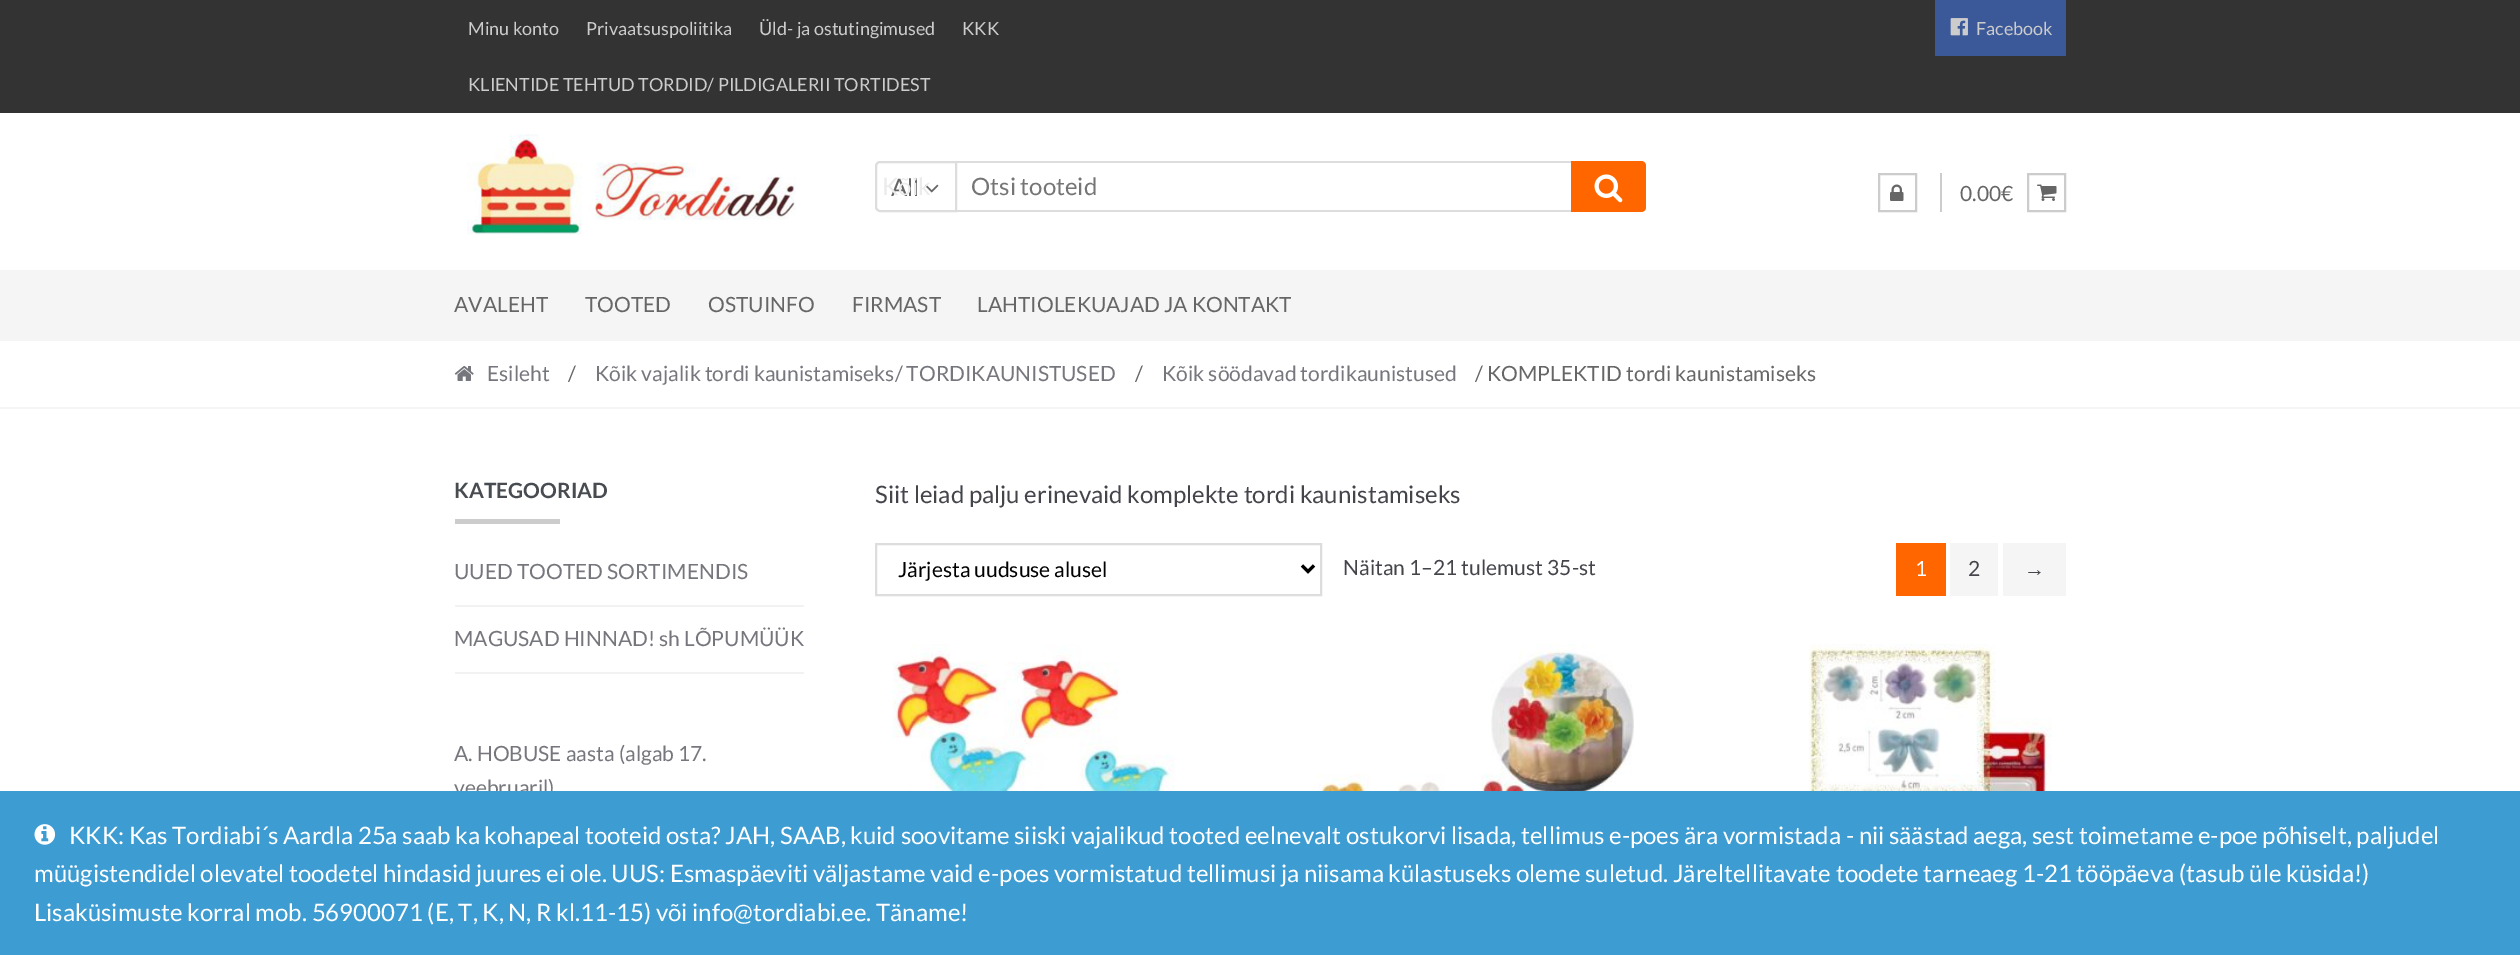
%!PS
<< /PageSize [2520 955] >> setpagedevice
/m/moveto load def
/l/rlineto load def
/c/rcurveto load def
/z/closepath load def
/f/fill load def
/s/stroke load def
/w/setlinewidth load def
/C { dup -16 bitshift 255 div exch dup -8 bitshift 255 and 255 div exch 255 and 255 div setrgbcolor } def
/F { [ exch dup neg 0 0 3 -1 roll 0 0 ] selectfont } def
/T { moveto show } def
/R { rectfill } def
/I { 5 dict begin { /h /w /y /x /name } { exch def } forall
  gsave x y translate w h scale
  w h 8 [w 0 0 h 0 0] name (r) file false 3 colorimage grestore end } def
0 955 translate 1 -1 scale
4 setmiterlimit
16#FFFFFF C
0 0 2520 955 R
16#333333 C
0 0 2520 113 R
/Lato-Regular 18 F
16#CCCCCC C
(Minu konto) 468 35 T
(Privaatsuspoliitika) 586 35 T
(Üld- ja ostutingimused) 759 35 T
(KKK) 962 35 T
(KLIENTIDE TEHTUD TORDID/ PILDIGALERII TORTIDEST) 468 91 T
16#3B5998 C
1935 0 131 56 R
(1.rgb) 1950 18 18 18 I
16#CCCCCC C
(Facebook) 1976 35 T
(2.rgb) 467 134 329 101 I
16#DDDDDD C
2 w
880 162 m 76 0 l 0 49 l -76 0 l -2 0 -4 -2 -4 -4 c 0 -41 l 0 -2 2 -4 4 -4 c z s
/Lato-Regular 24 F
16#666666 C
(All) 891 196 T
(3.rgb) 925 184 14 9 I
16#EBEBEB C
(Kõik) 882 195 T
16#DDDDDD C
957 161 614 2 R
957 210 614 2 R
16#757575 C
(Otsi tooteid) 971 195 T
16#FF6600 C
1571 161 m 70 0 l 3 0 5 2 5 5 c 0 41 l 0 3 -2 5 -5 5 c -70 0 l z f
(4.rgb) 1594 174 29 29 I
16#CCCCCC C
1940 173 2 39 R
1879 174 37 37 rectstroke
(5.rgb) 1890 184 14 17 I
/Lato-Regular 21 F
16#666666 C
(0.00€) 1960 201 T
16#CCCCCC C
2028 174 37 37 rectstroke
(6.rgb) 2037 184 20 17 I
16#F5F5F5 C
0 270 2520 71 R
16#666666 C
(AVALEHT) 454 312 T
(TOOTED) 585 312 T
(OSTUINFO) 708 312 T
(FIRMAST) 852 312 T
(LAHTIOLEKUAJAD JA KONTAKT) 977 312 T
16#F5F5F5 C
0 407 2520 2 R
(7.rgb) 454 366 20 15 I
16#75777D C
(Esileht) 487 381 T
16#666666 C
(/) 568 381 T
16#75777D C
(Kõik vajalik tordi kaunistamiseks/ TORDIKAUNISTUSED) 595 381 T
16#666666 C
(/) 1135 381 T
16#75777D C
(Kõik söödavad tordikaunistused) 1162 381 T
16#666666 C
(/ KOMPLEKTID tordi kaunistamiseks) 1475 381 T
/Lato-Bold 21 F
16#484C51 C
(KATEGOORIAD) 454 498 T
16#CCCCCC C
455 519 105 5 R
16#F2F2F2 C
455 605 349 2 R
/Lato-Regular 21 F
16#75777D C
(UUED TOOTED SORTIMENDIS) 454 579 T
16#F2F2F2 C
455 672 349 2 R
16#75777D C
(MAGUSAD HINNAD! sh LÕPUMÜÜK) 454 646 T
(A. HOBUSE aasta \(algab 17.) 454 761 T
(veebruaril\)) 454 795 T
/Lato-Regular 24 F
16#43454B C
(Siit leiad palju erinevaid komplekte tordi kaunistamiseks) 875 503 T
16#DDDDDD C
876 544 445 51 rectstroke
16#000000 C
3 w
1302 565.5 m 6 6 l 6 -6 l s
/Lato-Regular 21 F
(Järjesta uudsuse alusel) 898 577 T
16#43454B C
(Näitan 1–21 tulemust 35-st) 1343 575 T
16#FF6600 C
1896 543 50 53 R
16#FFFFFF C
(1) 1915 576 T
16#F5F5F5 C
1950 543 48 53 R
16#43454B C
(2) 1968 576 T
16#F5F5F5 C
2003 543 63 53 R
/LiberationSans-Regular 21 F
16#43454B C
(→) 2024 576 T
(8.rgb) 875 644 315 147 I
(9.rgb) 1295 644 339 147 I
(10.rgb) 1734 644 318 147 I
16#3D9CD2 C
0 791 2520 164 R
(11.rgb) 34 824 22 21 I
/Lato-Regular 24 F
16#FFFFFF C
(KKK: Kas Tordiabi´s Aardla 25a saab ka kohapeal tooteid osta? JAH, SAAB, kuid soovitame siiski vajalikud tooted eelnevalt ostukorvi lisada, tellimus e-poes ära vormistada - nii säästad aega, sest toimetame e-poe põhiselt, paljudel) 69 844 T
(müügistendidel olevatel toodetel hindasid juures ei ole. UUS: Esmaspäeviti väljastame vaid e-poes vormistatud tellimusi ja niisama külastuseks oleme suletud. Järeltellitavate toodete tarneaeg 1-21 tööpäeva \(tasub üle küsida!\)) 34 882 T
(Lisaküsimuste korral mob. 56900071 \(E, T, K, N, R kl.11-15\) või info@tordiabi.ee. Täname!) 34 921 T
showpage
